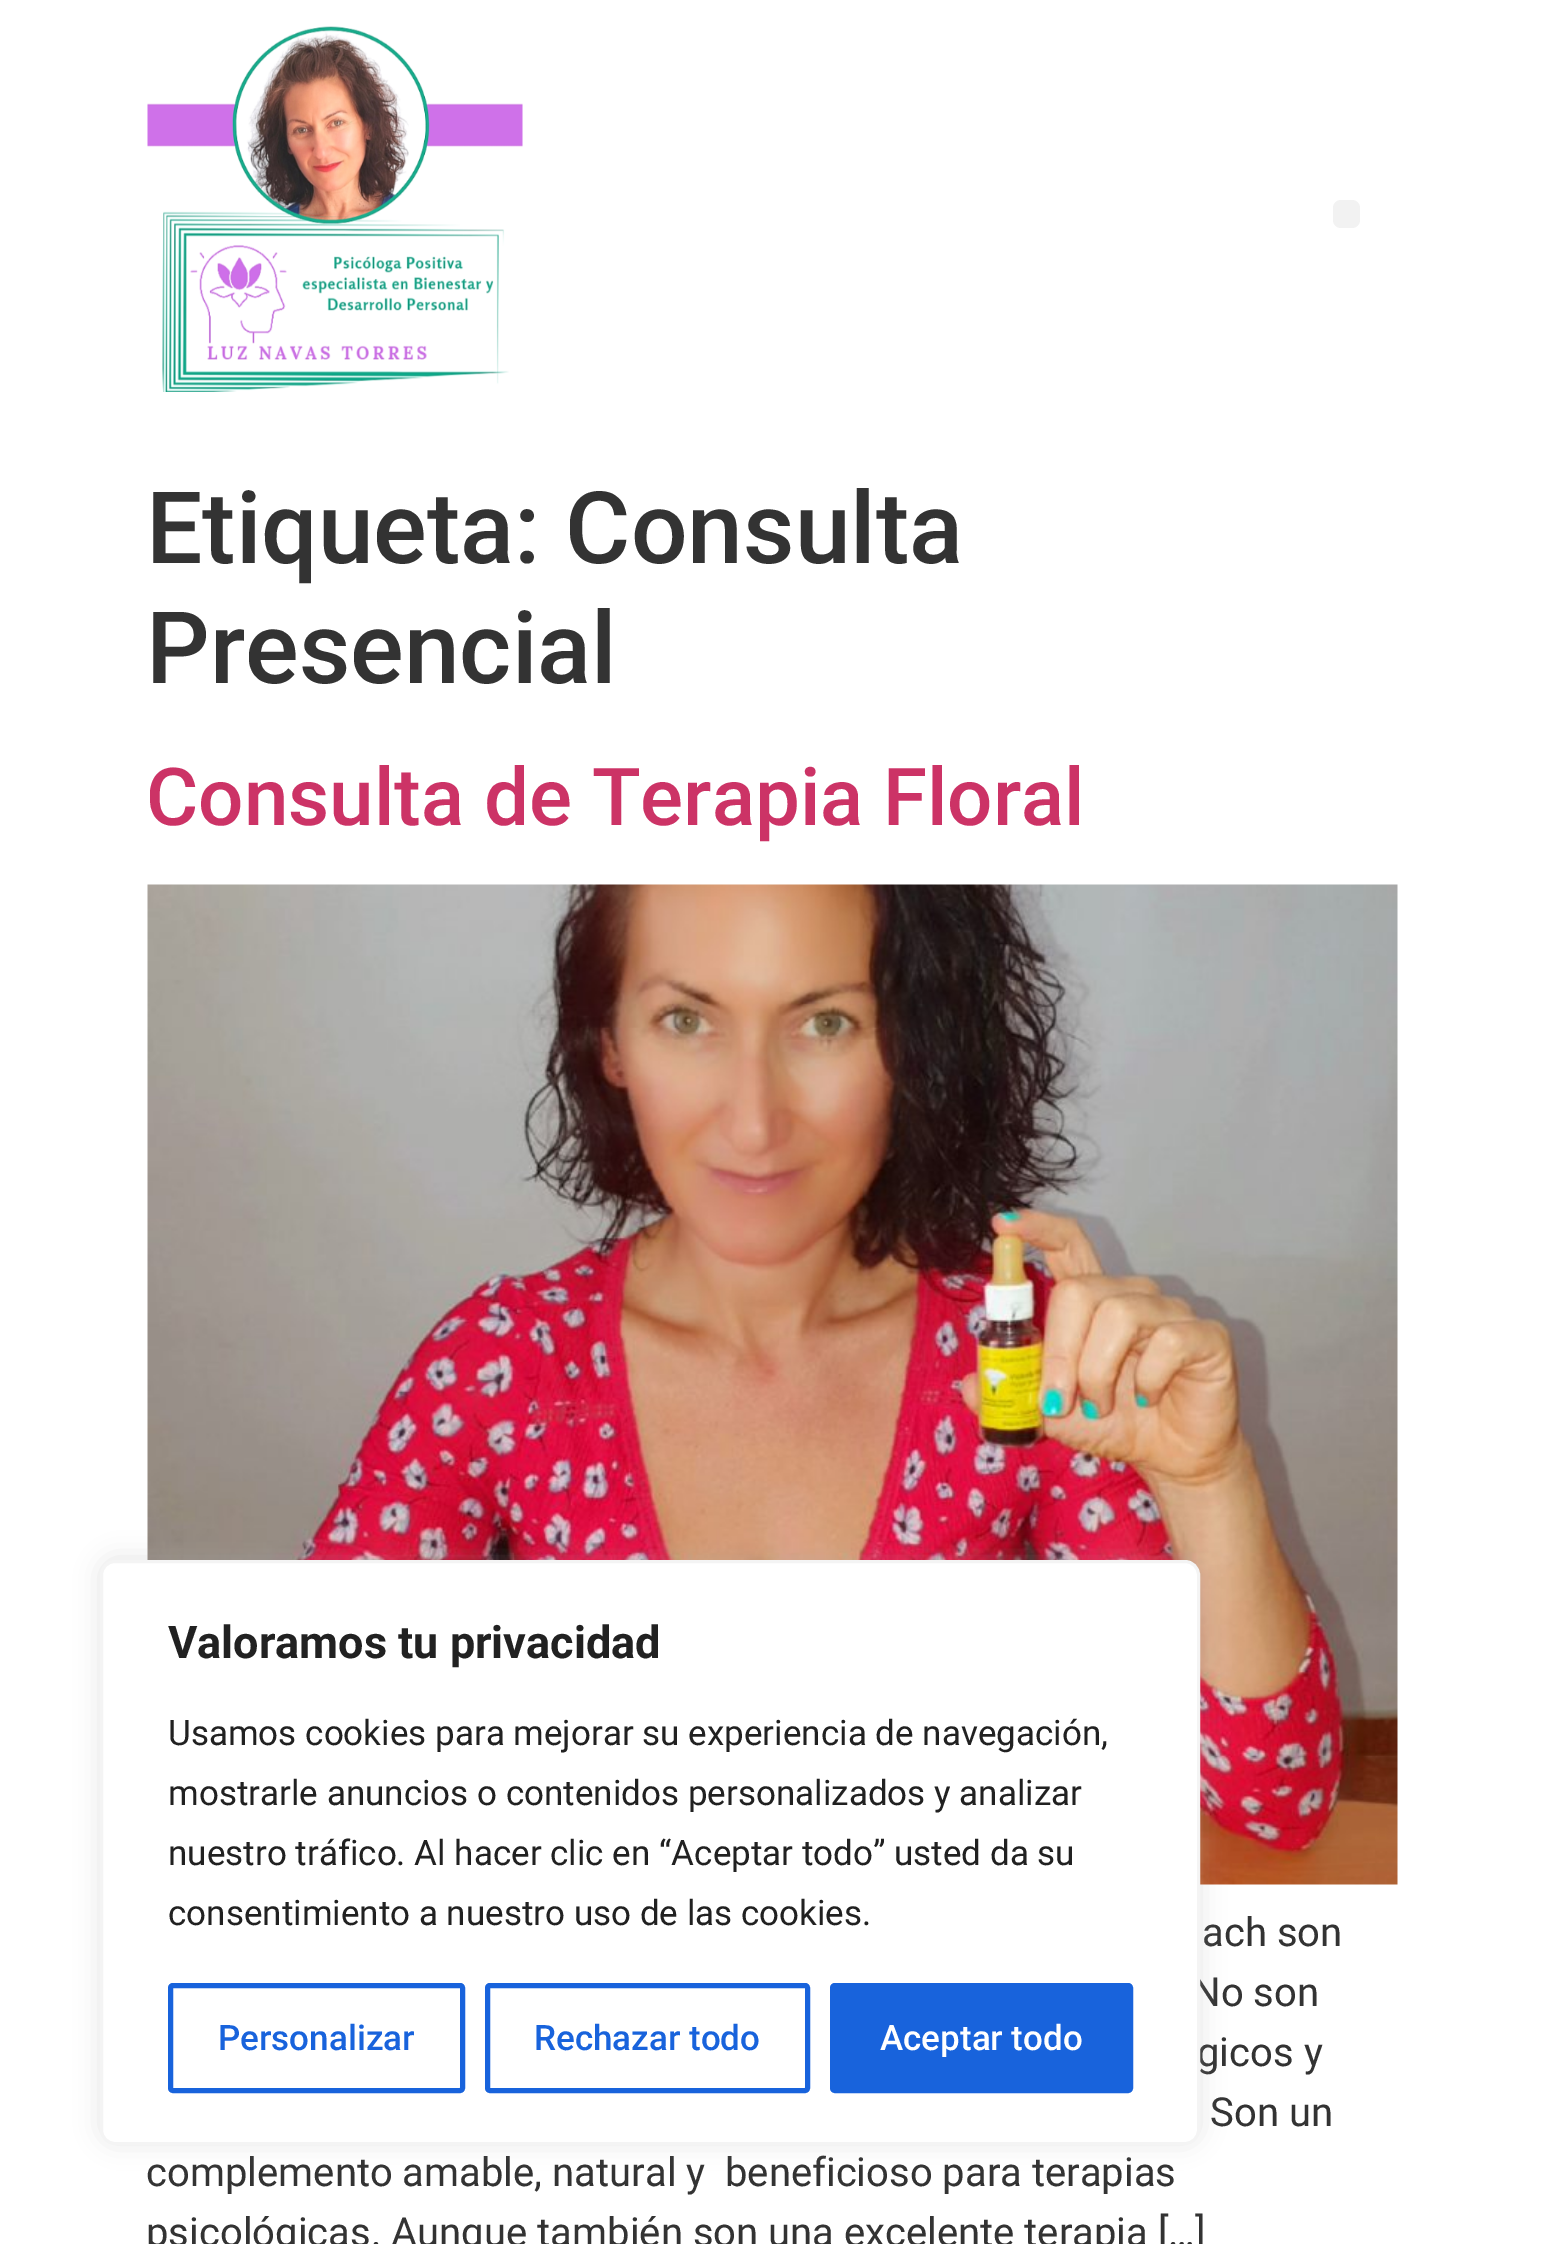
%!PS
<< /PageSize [1541 2244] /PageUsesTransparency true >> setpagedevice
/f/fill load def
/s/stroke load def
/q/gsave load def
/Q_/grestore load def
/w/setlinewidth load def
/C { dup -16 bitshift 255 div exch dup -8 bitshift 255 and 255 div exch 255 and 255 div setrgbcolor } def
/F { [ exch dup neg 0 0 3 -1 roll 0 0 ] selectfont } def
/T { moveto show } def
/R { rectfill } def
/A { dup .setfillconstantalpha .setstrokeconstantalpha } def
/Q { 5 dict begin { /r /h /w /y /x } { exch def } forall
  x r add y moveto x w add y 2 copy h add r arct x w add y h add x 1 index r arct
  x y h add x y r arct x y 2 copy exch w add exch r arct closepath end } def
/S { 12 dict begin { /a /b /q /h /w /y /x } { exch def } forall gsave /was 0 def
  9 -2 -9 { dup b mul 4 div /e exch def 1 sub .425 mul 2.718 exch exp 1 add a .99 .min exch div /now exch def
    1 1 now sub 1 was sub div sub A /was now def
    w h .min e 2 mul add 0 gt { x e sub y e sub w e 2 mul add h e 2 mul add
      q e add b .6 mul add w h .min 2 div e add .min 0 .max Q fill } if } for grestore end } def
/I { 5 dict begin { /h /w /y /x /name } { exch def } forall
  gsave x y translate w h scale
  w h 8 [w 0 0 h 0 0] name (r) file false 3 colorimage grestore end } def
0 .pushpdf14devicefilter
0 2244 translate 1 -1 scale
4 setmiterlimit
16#FFFFFF C
0 0 1541 2244 R
(1.rgb) 147 26 376 366 I
16#F2F2F2 C
1333 200 27 28 8 Q f
/Roboto-Medium 100 F
16#333333 C
(Etiqueta: Consulta) 146 563 T
(Presencial) 146 683 T
/Roboto-Medium 80 F
16#CC3366 C
(Consulta de Terapia Floral) 146 825 T
(2.rgb) 147 884 1251 1001 I
/Roboto-Regular 40 F
16#333333 C
(ach son) 1202 1946 T
(No son) 1192 2006 T
(gicos y) 1197 2066 T
(Son un) 1210 2126 T
(complemento amable, natural y  beneficioso para terapias) 146 2186 T
(psicológicas. Aunque también son una excelente terapia […]) 146 2246 T
16#ACABAB C
100 1558 1100 585 15 12.5 .3 S
16#FFFFFF C
101.5 1561.5 1097 582 13.5 Q q f Q_
16#F4F4F4 C
3 w
s
/Roboto-Bold 45 F
16#212121 C
(Valoramos tu privacidad) 168 1658 T
/Roboto-Regular 35 F
(Usamos cookies para mejorar su experiencia de navegación,) 168 1745 T
(mostrarle anuncios o contenidos personalizados y analizar) 168 1805 T
(nuestro tráfico. Al hacer clic en “Aceptar todo” usted da su) 168 1865 T
(consentimiento a nuestro uso de las cookies.) 168 1925 T
16#1863DC C
5 w
170.5 1985.5 292 105 2.5 Q s
/Roboto-Medium 35 F
(Personalizar) 218 2050 T
487.5 1985.5 320 105 2.5 Q s
(Rechazar todo) 534 2050 T
832.5 1985.5 298 105 2.5 Q q f Q_
s
16#FFFFFF C
(Aceptar todo) 880 2050 T
.poppdf14devicefilter showpage
